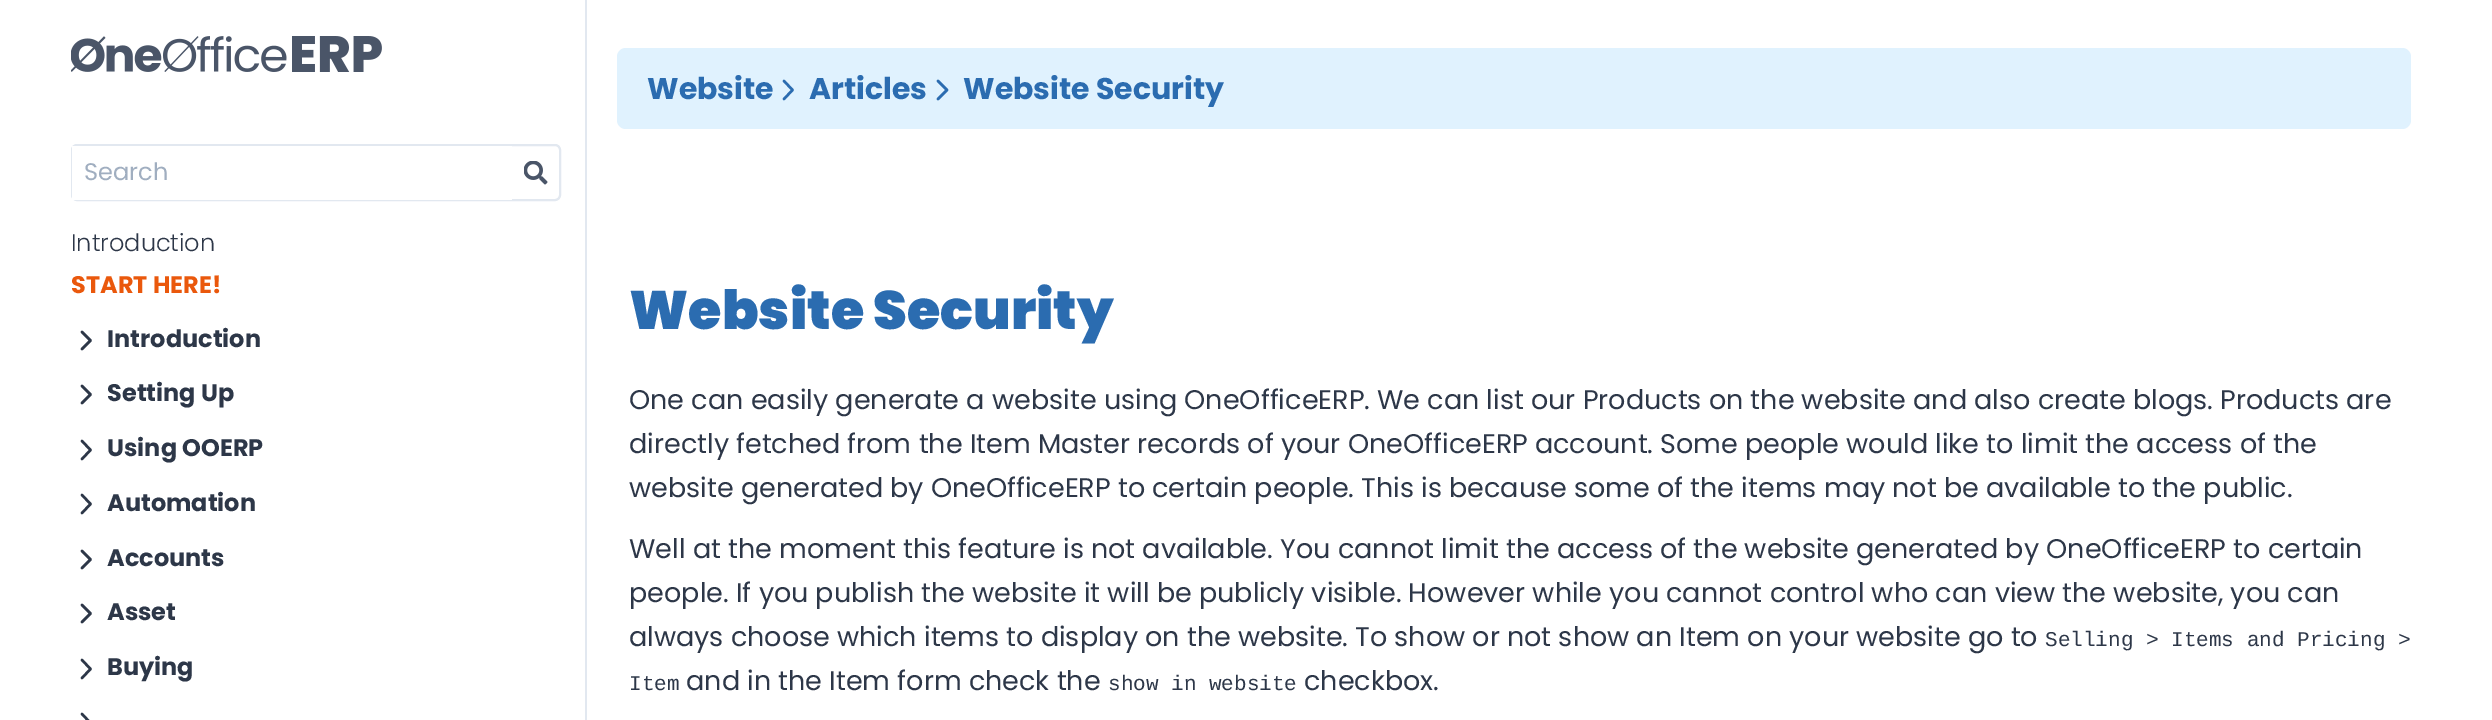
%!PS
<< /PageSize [2492 720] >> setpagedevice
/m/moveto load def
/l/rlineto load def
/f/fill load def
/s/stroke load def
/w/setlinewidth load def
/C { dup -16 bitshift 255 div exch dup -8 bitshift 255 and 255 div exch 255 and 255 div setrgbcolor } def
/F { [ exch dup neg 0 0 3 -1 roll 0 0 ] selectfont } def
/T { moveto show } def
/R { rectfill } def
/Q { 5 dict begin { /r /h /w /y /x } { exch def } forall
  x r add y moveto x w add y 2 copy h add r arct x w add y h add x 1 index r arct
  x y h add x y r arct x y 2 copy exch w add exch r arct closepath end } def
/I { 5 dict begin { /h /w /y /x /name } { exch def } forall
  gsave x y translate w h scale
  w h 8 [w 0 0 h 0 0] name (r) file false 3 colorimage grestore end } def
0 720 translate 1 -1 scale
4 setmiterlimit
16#FFFFFF C
0 0 2492 720 R
16#E2E8F0 C
585 0 2 720 R
(1.rgb) 71 36 311 36 I
2 w
72 145 488 55 5 Q s
16#FFFFFF C
72 146 440 54 R
/Poppins-Regular 24 F
16#A0AEC0 C
(Search) 84 180 T
(2.rgb) 524 161 24 24 I
/Poppins-Light 24 F
16#2D3748 C
(Introduction) 71 251 T
/Poppins-Bold 24 F
16#EA580C C
(START HERE!) 71 293 T
16#2D3748 C
2.5 w
1 setlinecap
1 setlinejoin
82 332 m 8.5 8.5 l -8.5 8.5 l s
(Introduction) 107 347 T
82 386 m 8.5 8.5 l -8.5 8.5 l s
(Setting Up) 107 401 T
82 441 m 8.5 9 l -8.5 9 l s
(Using OOERP) 107 456 T
82 495 m 8.5 9 l -8.5 9 l s
(Automation) 107 511 T
82 551 m 8.5 8.5 l -8.5 8.5 l s
(Accounts) 107 566 T
82 605 m 8.5 8.5 l -8.5 8.5 l s
(Asset) 107 620 T
82 660 m 8.5 9 l -8.5 9 l 82 714 m 8.5 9 l -8.5 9 l s
(Buying) 107 675 T
16#E0F2FE C
617 48 1794 81 9 Q f
/Poppins-Bold 30 F
16#2B6CB0 C
(Website) 647 99 T
784 81 m 8.5 9 l -8.5 9 l s
(Articles) 809 99 T
938 81 m 9 9 l -9 9 l s
(Website Security) 963 99 T
/Poppins-Black 54 F
(Website Security) 629 329 T
/Poppins-Regular 27 F
16#2D3748 C
(One can easily generate a website using OneOfficeERP. We can list our Products on the website and also create blogs. Products are) 629 409 T
(directly fetched from the Item Master records of your OneOfficeERP account. Some people would like to limit the access of the) 629 453 T
(website generated by OneOfficeERP to certain people. This is because some of the items may not be available to the public.) 629 497 T
(Well at the moment this feature is not available. You cannot limit the access of the website generated by OneOfficeERP to certain) 629 558 T
(people. If you publish the website it will be publicly visible. However while you cannot control who can view the website, you can) 629 602 T
(always choose which items to display on the website. To show or not show an Item on your website go to) 629 646 T
/LiberationMono-Regular 21 F
(Selling > Items and Pricing >) 2045 646 T
(Item) 629 690 T
/Poppins-Regular 27 F
(and in the Item form check the) 686 690 T
/LiberationMono-Regular 21 F
(show in website) 1108 690 T
/Poppins-Regular 27 F
(checkbox.) 1304 690 T
showpage
